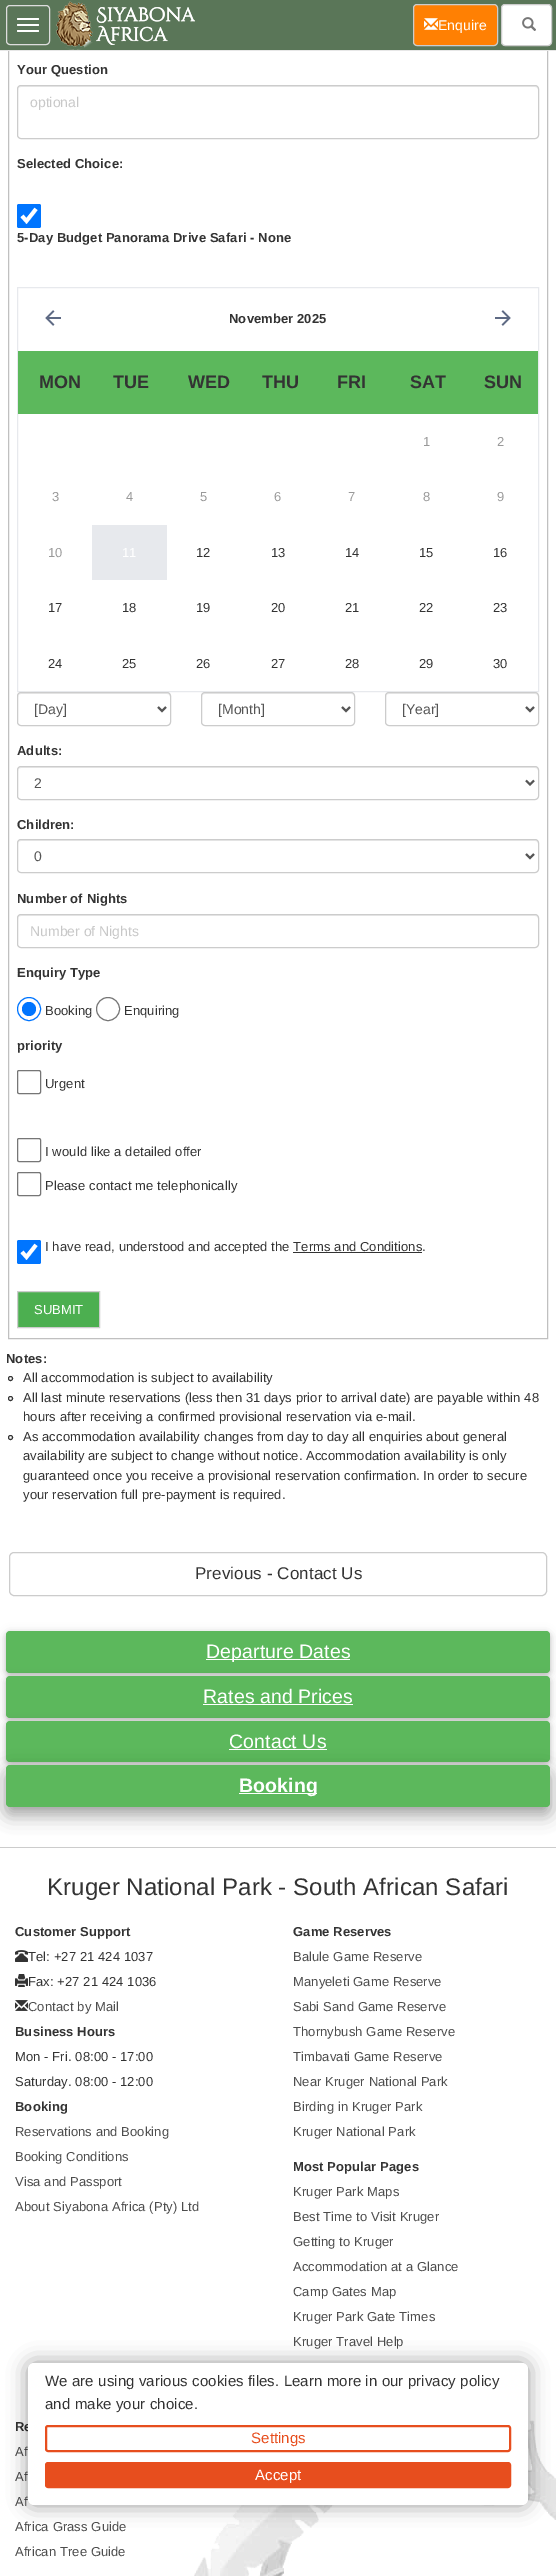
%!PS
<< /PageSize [556 2576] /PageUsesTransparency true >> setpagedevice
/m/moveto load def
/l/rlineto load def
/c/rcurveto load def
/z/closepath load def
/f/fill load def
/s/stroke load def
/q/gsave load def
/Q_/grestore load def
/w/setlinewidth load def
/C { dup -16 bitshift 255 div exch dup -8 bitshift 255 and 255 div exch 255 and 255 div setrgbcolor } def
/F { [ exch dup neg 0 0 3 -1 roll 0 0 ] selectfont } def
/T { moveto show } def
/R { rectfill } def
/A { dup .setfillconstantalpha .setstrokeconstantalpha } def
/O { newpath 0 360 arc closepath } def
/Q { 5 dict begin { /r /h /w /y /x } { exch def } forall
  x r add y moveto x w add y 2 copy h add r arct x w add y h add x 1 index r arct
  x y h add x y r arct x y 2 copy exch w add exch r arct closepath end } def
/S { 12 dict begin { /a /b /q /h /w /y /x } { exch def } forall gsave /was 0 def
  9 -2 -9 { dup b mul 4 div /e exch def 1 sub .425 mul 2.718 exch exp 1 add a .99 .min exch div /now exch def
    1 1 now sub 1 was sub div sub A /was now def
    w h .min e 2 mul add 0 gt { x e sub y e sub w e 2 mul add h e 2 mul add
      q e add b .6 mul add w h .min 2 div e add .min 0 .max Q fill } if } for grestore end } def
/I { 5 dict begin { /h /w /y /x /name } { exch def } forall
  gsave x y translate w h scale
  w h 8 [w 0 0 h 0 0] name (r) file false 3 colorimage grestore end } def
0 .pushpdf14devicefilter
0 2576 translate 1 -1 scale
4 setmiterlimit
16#FFFFFF C
0 0 556 2576 R
16#C0C0C0 C
8.5 -.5 539 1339 rectstroke
16#5A7658 C
0 0 556 50 R
16#E7E7E7 C
0 50 556 1 R
16#DDDDDD C
6.5 5.5 43 39 3.5 Q s
16#FFFFFF C
17 18 22 2 1 Q f
17 24 22 2 1 Q f
17 30 22 2 1 Q f
(1.rgb) 56 1 139 49 I
16#FF8003 C
413.5 4.5 84 41 3.5 Q q f Q_
16#CCCCCC C
s
(2.rgb) 424 18 14 12 I
/LiberationSans-Regular 14 F
16#FFFFFF C
438 30 m .1 0 (Enquire) ashow
501.5 4.5 50 41 3.5 Q q f Q_
16#CCCCCC C
s
(3.rgb) 522 17 14 14 I
/LiberationSans-Bold 13 F
16#333333 C
17 74 m .1 0 (Your Question) ashow
16#ECECEC C
21 87 m 514 0 l 2 0 3 1 3 3 c 0 -2 l -2 -2 l -515 0 l -2 0 -3 2 -3 4 c 0 -2 1 -3 3 -3 c z f
16#CCCCCC C
17.5 85.5 521 53 3.5 Q s
/LiberationSans-Regular 14 F
16#C8C8C8 C
(optional) 30 107 T
/LiberationSans-Bold 13 F
16#333333 C
17 168 m .1 0 (Selected Choice:) ashow
16#0075FF C
17 204 24 24 2 Q f
16#FFFFFF C
3.8 w
22 216 m 4.5 5 l 9.5 -12 l s
16#333333 C
17 242 m .1 0 (5-Day Budget Panorama Drive Safari - None) ashow
16#E7E9ED C
1 w
17.5 287.5 521 404 rectstroke
(4.rgb) 45 310 16 16 I
16#333333 C
229 323 m .1 0 (November 2025) ashow
(5.rgb) 495 310 16 16 I
16#5CB85C C
18 351 520 63 R
/LiberationSans-Bold 18 F
16#333333 C
39 388 m .1 0 (MON) ashow
113 388 m .1 0 (TUE) ashow
188 388 m .1 0 (WED) ashow
262 388 m .1 0 (THU) ashow
337 388 m .1 0 (FRI) ashow
410 388 m .1 0 (SAT) ashow
484 388 m .1 0 (SUN) ashow
/LiberationSans-Regular 13 F
16#999999 C
423 446 m .1 0 (1) ashow
497 446 m .1 0 (2) ashow
52 501 m .1 0 (3) ashow
126 501 m .1 0 (4) ashow
200 501 m .1 0 (5) ashow
274 501 m .1 0 (6) ashow
348 501 m .1 0 (7) ashow
423 501 m .1 0 (8) ashow
497 501 m .1 0 (9) ashow
48 557 m .1 0 (10) ashow
16#E7E9ED C
92 525 75 55 R
16#FFFFFF C
122 557 m .1 0 (11) ashow
16#333333 C
196 557 m .1 0 (12) ashow
271 557 m .1 0 (13) ashow
345 557 m .1 0 (14) ashow
419 557 m .1 0 (15) ashow
493 557 m .1 0 (16) ashow
48 612 m .1 0 (17) ashow
122 612 m .1 0 (18) ashow
196 612 m .1 0 (19) ashow
271 612 m .1 0 (20) ashow
345 612 m .1 0 (21) ashow
419 612 m .1 0 (22) ashow
493 612 m .1 0 (23) ashow
48 668 m .1 0 (24) ashow
122 668 m .1 0 (25) ashow
196 668 m .1 0 (26) ashow
271 668 m .1 0 (27) ashow
345 668 m .1 0 (28) ashow
419 668 m .1 0 (29) ashow
493 668 m .1 0 (30) ashow
16#ECECEC C
21 694 m 146 0 l 2 0 3 1 3 3 c 0 -2 0 -3 -2 -4 c -123 0 l -7 0 -27 -5 -27 4 c 0 -2 1 -3 3 -3 c z f
16#CCCCCC C
17.5 692.5 153 33 3.5 Q s
16#555555 C
2 w
158 707 m 4 4 l 4 -4 l s
/LiberationSans-Regular 14 F
([Day]) 34 714 T
16#ECECEC C
205 694 m 146 0 l 2 0 3 1 3 3 c 0 -2 0 -3 -2 -4 c -123 0 l -7 0 -27 -5 -27 4 c 0 -2 1 -3 3 -3 c z f
16#CCCCCC C
1 w
201.5 692.5 153 33 3.5 Q s
16#555555 C
2 w
342 707 m 4 4 l 4 -4 l s
([Month]) 218 714 T
16#ECECEC C
389 694 m 146 0 l 2 0 3 1 3 3 c 0 -2 0 -3 -2 -4 c -123 0 l -7 0 -27 -5 -27 4 c 0 -2 1 -3 3 -3 c z f
16#CCCCCC C
1 w
385.5 692.5 153 33 3.5 Q s
16#555555 C
2 w
526 707 m 4 4 l 4 -4 l s
([Year]) 402 714 T
/LiberationSans-Bold 13 F
16#333333 C
17 755 m .1 0 (Adults:) ashow
16#ECECEC C
21 768 m 514 0 l 2 0 3 1 3 3 c 0 -2 l -2 -2 l -515 0 l -2 0 -3 2 -3 4 c 0 -2 1 -3 3 -3 c z f
16#CCCCCC C
1 w
17.5 766.5 521 33 3.5 Q s
16#555555 C
2 w
526 780.5 m 4 4 l 4 -4 l s
/LiberationSans-Regular 14 F
(2) 34 788 T
/LiberationSans-Bold 13 F
16#333333 C
17 829 m .1 0 (Children:) ashow
16#ECECEC C
21 841 m 514 0 l 2 0 3 1 3 3 c 0 -2 l -2 -2 l -515 0 l -2 0 -3 2 -3 4 c 0 -2 1 -3 3 -3 c z f
16#CCCCCC C
1 w
17.5 839.5 521 33 3.5 Q s
16#555555 C
2 w
526 854 m 4 4 l 4 -4 l s
/LiberationSans-Regular 14 F
(0) 34 861 T
/LiberationSans-Bold 13 F
16#333333 C
17 903 m .1 0 (Number of Nights) ashow
16#ECECEC C
21 916 m 514 0 l 2 0 3 1 3 3 c 0 -2 l -2 -2 l -515 0 l -2 0 -3 2 -3 4 c 0 -2 1 -3 3 -3 c z f
16#CCCCCC C
1 w
17.5 914.5 521 33 3.5 Q s
/LiberationSans-Regular 14 F
16#C8C8C8 C
(Number of Nights) 30 936 T
/LiberationSans-Bold 13 F
16#333333 C
17 977 m .1 0 (Enquiry Type) ashow
16#0075FF C
29 1009 11.5 O s
29 1009 7 O f
/LiberationSans-Regular 13 F
16#333333 C
45 1015 m .1 0 (Booking) ashow
16#767676 C
108 1009 11.5 O s
16#333333 C
124 1015 m .1 0 (Enquiring) ashow
/LiberationSans-Bold 13 F
17 1050 m .1 0 (priority) ashow
16#767676 C
17.5 1070.5 23 23 1.5 Q s
/LiberationSans-Regular 13 F
16#333333 C
45 1088 m .1 0 (Urgent) ashow
16#767676 C
17.5 1138.5 23 23 1.5 Q s
16#333333 C
45 1156 m .1 0 (I would like a detailed offer) ashow
16#767676 C
17.5 1172.5 23 23 1.5 Q s
16#333333 C
45 1190 m .1 0 (Please contact me telephonically) ashow
16#0075FF C
17 1240 24 24 2 Q f
16#FFFFFF C
3.8 w
22 1252 m 4.5 5 l 9.5 -12 l s
16#333333 C
45 1251 m .1 0 (I have read, understood and accepted the Terms and Conditions.) ashow
293 1252 129 1 R
16#4CAF50 C
17.5 1291.5 m 82 0 l 0 36 l -82 0 l z q f Q_
16#CCCCCC C
1 w
s
16#FFFFFF C
(SUBMIT) 34 1314 T
/LiberationSans-Bold 13 F
16#333333 C
6 1363 m .1 0 (Notes:) ashow
10.5 1378.5 2 O s
/LiberationSans-Regular 13 F
23 1382 m .1 0 (All accommodation is subject to availability) ashow
10.5 1398.5 2 O s
23 1402 m .1 0 (All last minute reservations \(less then 31 days prior to arrival date\) are payable within 48) ashow
23 1421 m .1 0 (hours after receiving a confirmed provisional reservation via e-mail.) ashow
10.5 1437.5 2 O s
23 1441 m .1 0 (As accommodation availability changes from day to day all enquiries about general) ashow
23 1460 m .1 0 (availability are subject to change without notice. Accommodation availability is only) ashow
23 1480 m .1 0 (guaranteed once you receive a provisional reservation confirmation. In order to secure) ashow
23 1499 m .1 0 (your reservation full pre-payment is required.) ashow
16#CCCCCC C
9.5 1552.5 537 43 4.5 Q s
/LiberationSans-Regular 17 F
16#333333 C
195 1579 m .1 0 (Previous - Contact Us) ashow
16#000000 C
6 1633 544 42 4 5 .12 S
6 1633 544 42 4 2.5 .16 S
16#5CB85C C
6 1631 544 42 4 Q f
16#FFFFFF C
206 1659 144 1 R
/LiberationSans-Regular 19.5 F
206 1658 m .1 0 (Departure Dates) ashow
16#000000 C
6 1678 544 42 4 5 .12 S
6 1678 544 42 4 2.5 .16 S
16#5CB85C C
6 1676 544 42 4 Q f
16#FFFFFF C
203 1703 m .1 0 (Rates and Prices) ashow
203 1704 150 1 R
16#000000 C
6 1723 544 41 4 5 .12 S
6 1723 544 41 4 2.5 .16 S
16#5CB85C C
6 1721 544 41 4 Q f
16#FFFFFF C
229 1748 m .1 0 (Contact Us) ashow
229 1749 98 1 R
16#000000 C
6 1771 544 42 4 10 .21 S
6 1773 544 42 4 8.5 .22 S
16#5CB85C C
6 1765 544 42 4 Q f
16#FFFFFF C
239 1793 78 1 R
/LiberationSans-Bold 19.5 F
239 1792 m .1 0 (Booking) ashow
(6.rgb) 194 2420 362 156 I
16#CCCCCC C
0 1847 556 1 R
/LiberationSans-Regular 24 F
16#333333 C
47 1895 m .1 0 (Kruger National Park - South African Safari) ashow
/LiberationSans-Bold 13 F
15 1936 m .1 0 (Customer Support) ashow
(7.rgb) 15 1950 13 12 I
/LiberationSans-Regular 13 F
28 1961 m .1 0 (Tel: +27 21 424 1037) ashow
(8.rgb) 15 1974 13 13 I
28 1986 m .1 0 (Fax: +27 21 424 1036) ashow
(9.rgb) 15 2000 13 11 I
16#4D4D4D C
28 2011 m .1 0 (Contact by Mail) ashow
/LiberationSans-Bold 13 F
16#333333 C
15 2036 m .1 0 (Business Hours) ashow
/LiberationSans-Regular 13 F
15 2061 m .1 0 (Mon - Fri. 08:00 - 17:00) ashow
15 2086 m .1 0 (Saturday. 08:00 - 12:00) ashow
/LiberationSans-Bold 13 F
15 2111 m .1 0 (Booking) ashow
/LiberationSans-Regular 13 F
16#4D4D4D C
15 2136 m .1 0 (Reservations and Booking) ashow
15 2161 m .1 0 (Booking Conditions) ashow
15 2186 m .1 0 (Visa and Passport) ashow
15 2211 m .1 0 (About Siyabona Africa \(Pty\) Ltd) ashow
/LiberationSans-Bold 13 F
16#333333 C
293 1936 m .1 0 (Game Reserves) ashow
/LiberationSans-Regular 13 F
16#4D4D4D C
293 1961 m .1 0 (Balule Game Reserve) ashow
293 1986 m .1 0 (Manyeleti Game Reserve) ashow
293 2011 m .1 0 (Sabi Sand Game Reserve) ashow
293 2036 m .1 0 (Thornybush Game Reserve) ashow
293 2061 m .1 0 (Timbavati Game Reserve) ashow
293 2086 m .1 0 (Near Kruger National Park) ashow
293 2111 m .1 0 (Birding in Kruger Park) ashow
293 2136 m .1 0 (Kruger National Park) ashow
/LiberationSans-Bold 13 F
16#333333 C
293 2171 m .1 0 (Most Popular Pages) ashow
/LiberationSans-Regular 13 F
16#4D4D4D C
293 2196 m .1 0 (Kruger Park Maps) ashow
293 2221 m .1 0 (Best Time to Visit Kruger) ashow
293 2246 m .1 0 (Getting to Kruger) ashow
293 2271 m .1 0 (Accommodation at a Glance) ashow
293 2296 m .1 0 (Camp Gates Map) ashow
293 2321 m .1 0 (Kruger Park Gate Times) ashow
293 2346 m .1 0 (Kruger Travel Help) ashow
/LiberationSans-Bold 13 F
16#333333 C
15 2431 m .1 0 (Re) ashow
/LiberationSans-Regular 13 F
16#4D4D4D C
15 2456 m .1 0 (Af) ashow
15 2481 m .1 0 (Af) ashow
15 2506 m .1 0 (Af) ashow
15 2531 m .1 0 (Africa Grass Guide) ashow
15 2556 m .1 0 (African Tree Guide) ashow
16#000000 C
28 2363 500 142 6 10 .4 S
16#FFFFFF C
28 2363 500 142 6 Q f
/LiberationSans-Regular 15 F
16#333333 C
45 2386 m .1 0 (We are using various cookies files. Learn more in our privacy policy) ashow
45 2409 m .1 0 (and make your choice.) ashow
16#E74E1E C
2 w
46 2426 464 25 2 Q s
251 2443 m .1 0 (Settings) ashow
46 2463 464 24 2 Q q f Q_
s
16#FFFFFF C
255 2480 m .1 0 (Accept) ashow
.poppdf14devicefilter showpage
